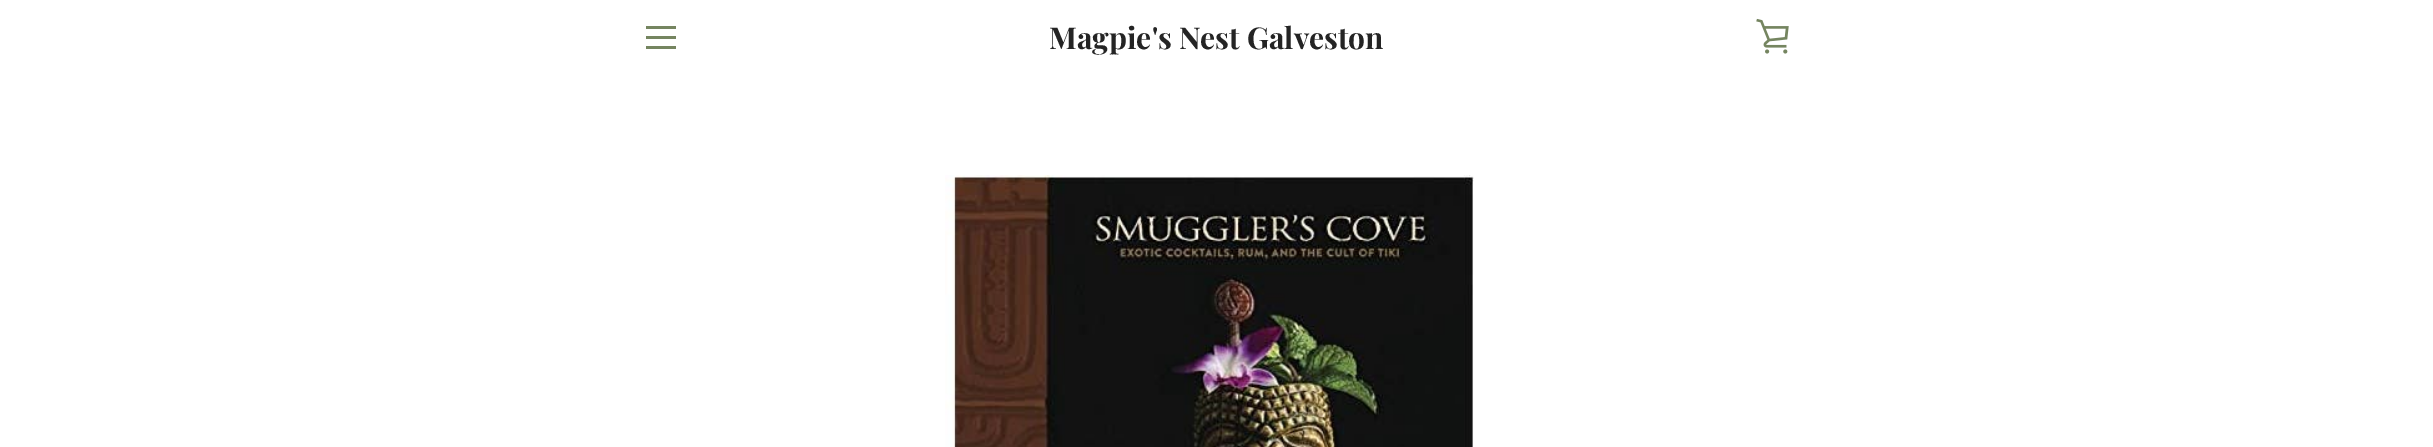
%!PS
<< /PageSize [2433 447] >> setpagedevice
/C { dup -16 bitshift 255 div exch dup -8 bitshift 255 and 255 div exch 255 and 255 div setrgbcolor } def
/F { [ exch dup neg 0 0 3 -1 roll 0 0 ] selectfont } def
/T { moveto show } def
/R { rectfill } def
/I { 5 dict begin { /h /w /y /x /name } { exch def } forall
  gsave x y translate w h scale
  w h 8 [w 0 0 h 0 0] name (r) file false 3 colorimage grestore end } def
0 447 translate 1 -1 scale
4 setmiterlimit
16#FFFFFF C
0 0 2433 447 R
16#758560 C
646 26 30 3 R
646 36 30 3 R
646 46 30 3 R
/PlayfairDisplay-Bold 30 F
16#242424 C
(Magpie's Nest Galveston) 1049 49 T
(1.rgb) 1756 18 33 36 I
(2.rgb) 945 175 529 272 I
showpage
